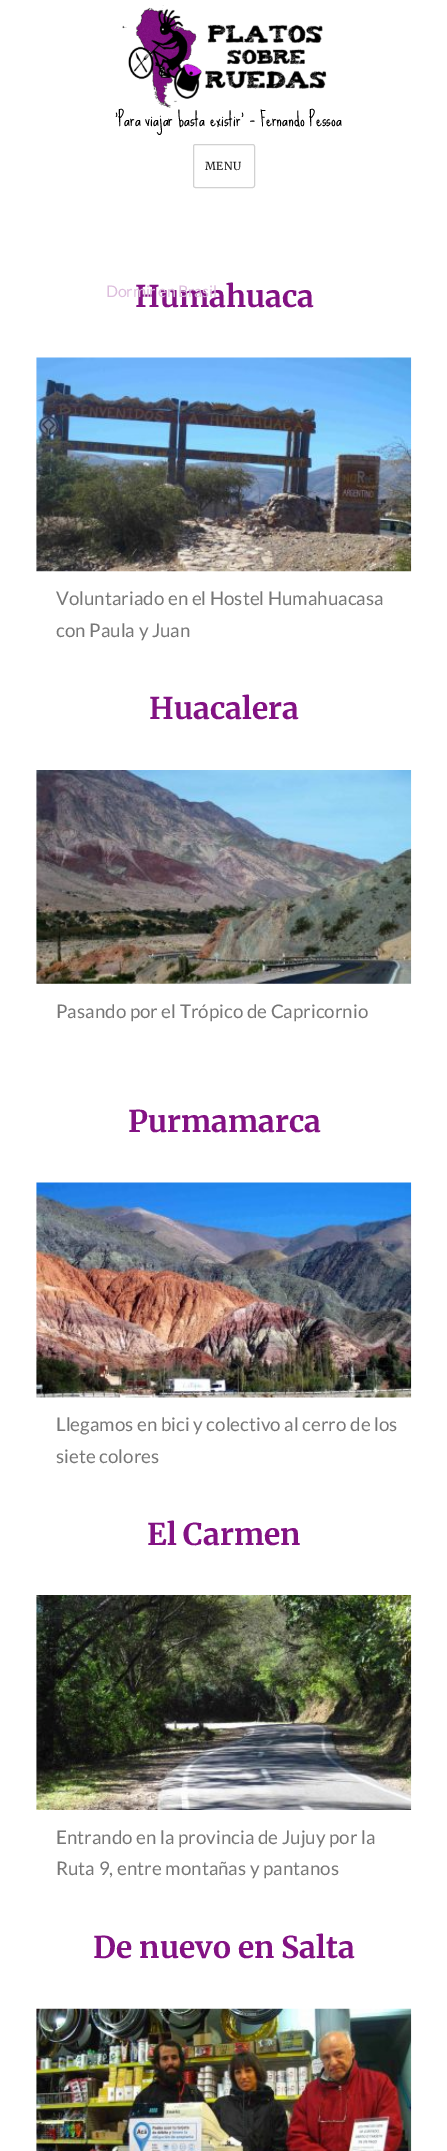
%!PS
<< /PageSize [447 2151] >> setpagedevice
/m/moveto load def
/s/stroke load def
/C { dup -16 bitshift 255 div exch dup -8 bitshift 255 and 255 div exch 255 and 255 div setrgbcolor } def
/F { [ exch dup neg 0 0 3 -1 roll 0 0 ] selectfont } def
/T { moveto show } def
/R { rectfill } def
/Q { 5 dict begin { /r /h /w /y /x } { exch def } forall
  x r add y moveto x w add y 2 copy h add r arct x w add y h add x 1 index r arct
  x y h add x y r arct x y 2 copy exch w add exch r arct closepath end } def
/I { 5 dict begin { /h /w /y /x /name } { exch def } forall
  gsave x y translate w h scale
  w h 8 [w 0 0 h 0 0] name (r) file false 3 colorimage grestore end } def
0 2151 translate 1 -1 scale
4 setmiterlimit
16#FFFFFF C
0 0 447 2151 R
/SueEllenFrancisco-Regular 18.75 F
16#000000 C
('Para viajar basta existir' – Fernando Pessoa) 115 126 T
(1.rgb) 122 5 205 103 I
16#D1D1D1 C
193.5 144.5 61 43 2 Q s
/Merriweather-Regular 11 F
16#1A1A1A C
205 170 m .5 0 (MENU) ashow
/Merriweather-Bold 30 F
16#831283 C
(Humahuaca) 135 307 T
(2.rgb) 36 357 376 215 I
/Lato-Regular 18.75 F
16#777777 C
(Voluntariado en el Hostel Humahuacasa) 56 605 T
(con Paula y Juan) 56 637 T
/Merriweather-Bold 30 F
16#831283 C
(Huacalera) 149 719 T
(3.rgb) 36 770 376 214 I
/Lato-Regular 18.75 F
16#777777 C
(Pasando por el Trópico de Capricornio) 56 1018 T
/Merriweather-Bold 30 F
16#831283 C
(Purmamarca) 128 1132 T
(4.rgb) 36 1182 376 216 I
/Lato-Regular 18.75 F
16#777777 C
(Llegamos en bici y colectivo al cerro de los) 56 1431 T
(siete colores) 56 1463 T
/Merriweather-Bold 30 F
16#831283 C
(El Carmen) 147 1545 T
(5.rgb) 36 1595 376 215 I
/Lato-Regular 18.75 F
16#777777 C
(Entrando en la provincia de Jujuy por la) 56 1844 T
(Ruta 9, entre montañas y pantanos) 56 1875 T
/Merriweather-Bold 30 F
16#831283 C
(De nuevo en Salta) 93 1958 T
(6.rgb) 36 2008 376 143 I
/Lato-Regular 16 F
16#DDBEDD C
106 297 m -.25 0 (Dormir en Brasil) ashow
showpage
